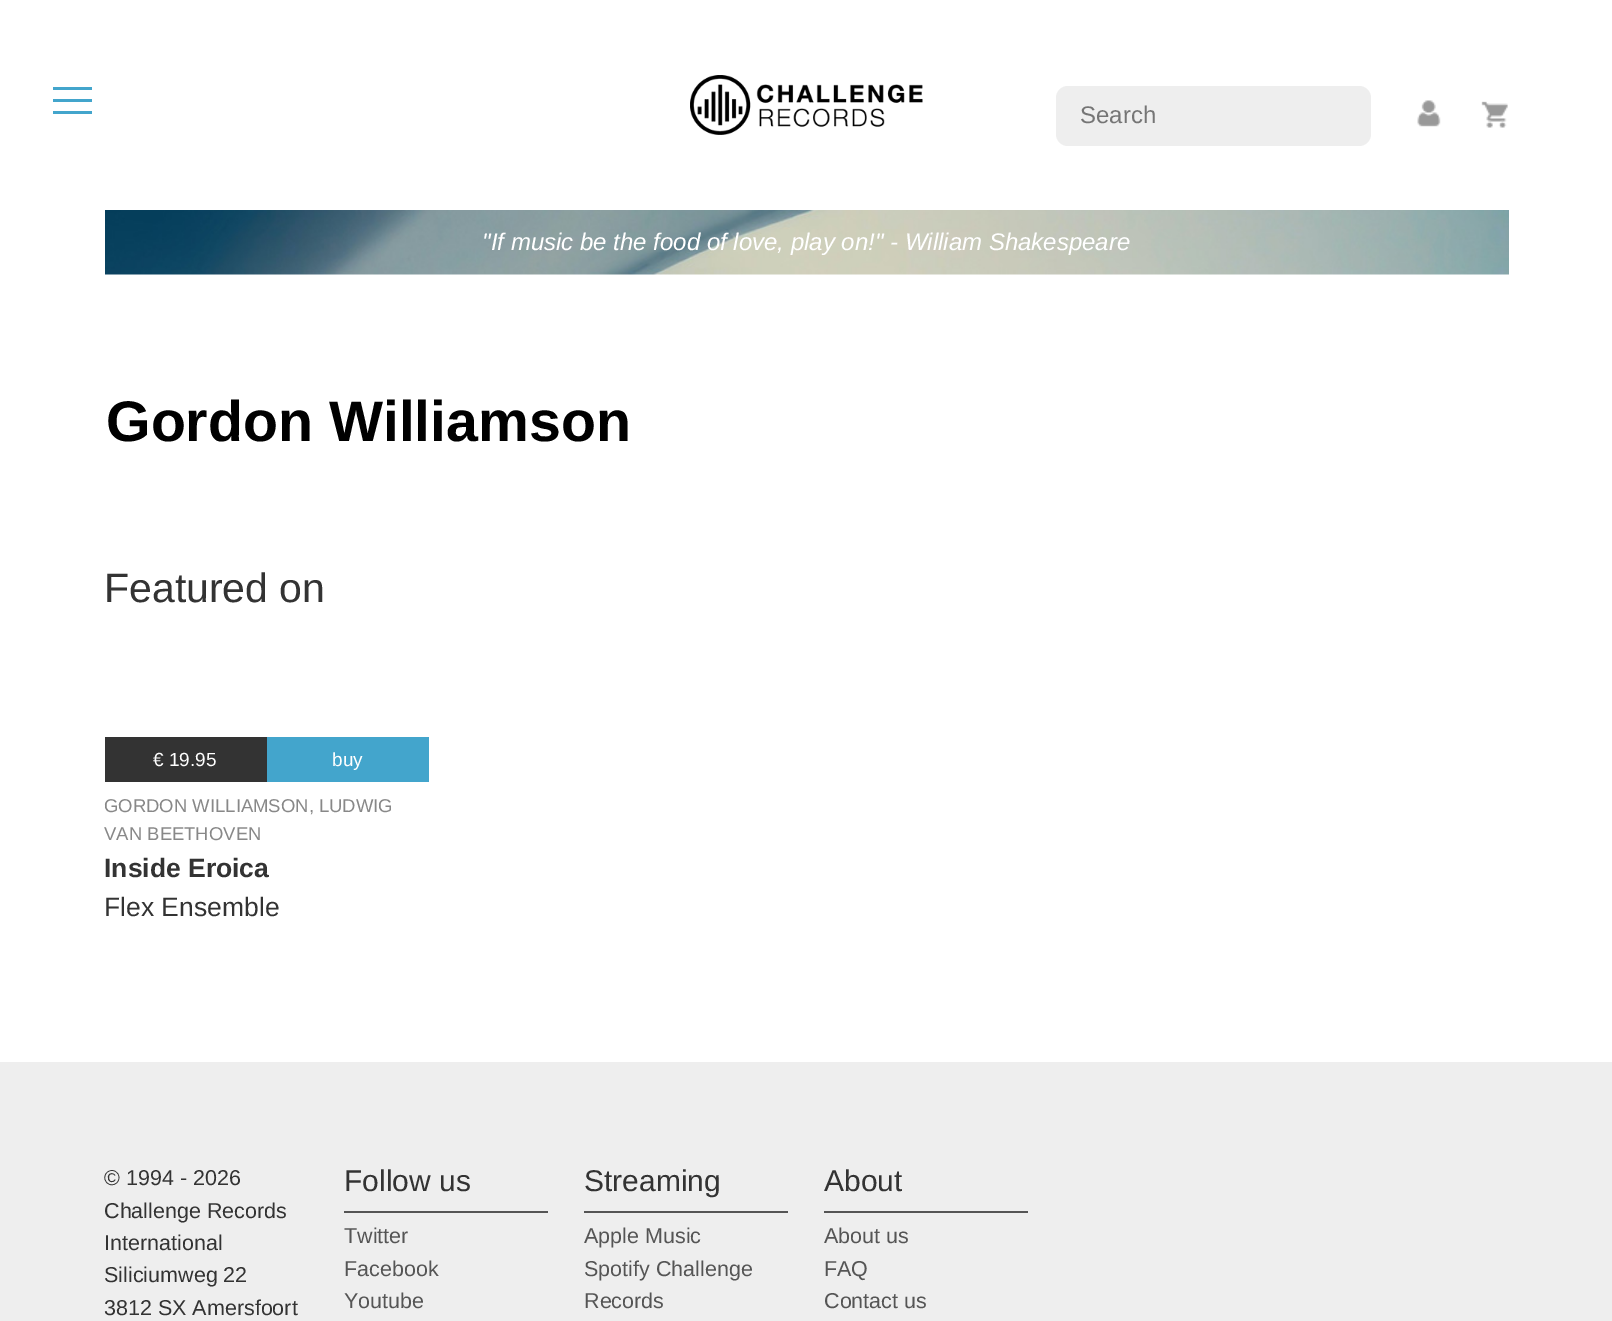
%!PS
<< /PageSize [1612 1321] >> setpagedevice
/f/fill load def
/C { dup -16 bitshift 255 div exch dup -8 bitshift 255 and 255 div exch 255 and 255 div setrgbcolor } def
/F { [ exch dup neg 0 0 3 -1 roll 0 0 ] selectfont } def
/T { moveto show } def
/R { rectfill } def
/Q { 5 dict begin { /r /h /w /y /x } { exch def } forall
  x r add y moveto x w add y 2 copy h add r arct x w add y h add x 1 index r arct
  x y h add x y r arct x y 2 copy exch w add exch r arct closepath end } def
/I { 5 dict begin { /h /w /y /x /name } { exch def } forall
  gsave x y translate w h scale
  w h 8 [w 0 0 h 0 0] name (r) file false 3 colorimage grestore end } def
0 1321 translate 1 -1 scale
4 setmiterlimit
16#FFFFFF C
0 0 1612 1321 R
16#43A5CC C
53 87 39 3 R
53 99 39 3 R
53 111 39 3 R
16#EEEEEE C
1056 86 315 60 12 Q f
/LiberationSans-Regular 24 F
16#757575 C
(Search) 1080 123 T
(1.rgb) 1417 100 24 27 I
(2.rgb) 1481 101 27 27 I
(3.rgb) 690 75 233 60 I
(4.rgb) 105 210 1404 65 I
/LiberationSans-Italic 24 F
16#FFFFFF C
("If music be the food of love, play on!" - William Shakespeare) 482 250 T
/LiberationSans-Bold 57.25 F
16#000000 C
(Gordon Williamson) 106 441 T
/LiberationSans-Regular 41 F
16#333333 C
(Featured on) 104 602 T
105 737 162 45 R
/LiberationSans-Regular 19 F
16#FFFFFF C
(€ 19.95) 153 766 T
16#43A5CC C
267 737 162 45 R
16#FFFFFF C
(buy) 332 766 T
/LiberationSans-Regular 18.5 F
16#888888 C
(GORDON WILLIAMSON, LUDWIG) 104 812 T
(VAN BEETHOVEN) 104 840 T
/LiberationSans-Bold 26.5 F
16#333333 C
(Inside Eroica) 104 877 T
/LiberationSans-Regular 26.5 F
(Flex Ensemble) 104 916 T
16#EEEEEE C
0 1062 1612 259 R
/LiberationSans-Regular 21.5 F
16#333333 C
(© 1994 - 2026) 104 1185 T
(Challenge Records) 104 1218 T
(International) 104 1250 T
(Siliciumweg 22) 104 1282 T
(3812 SX Amersfoort) 104 1315 T
/LiberationSans-Regular 30 F
(Follow us) 344 1191 T
16#555555 C
344 1211 204 2 R
/LiberationSans-Regular 21.5 F
(Twitter) 344 1243 T
(Facebook) 344 1276 T
(Youtube) 344 1308 T
/LiberationSans-Regular 30 F
16#333333 C
(Streaming) 584 1191 T
16#555555 C
584 1211 204 2 R
/LiberationSans-Regular 21.5 F
(Apple Music) 584 1243 T
(Spotify Challenge) 584 1276 T
(Records) 584 1308 T
/LiberationSans-Regular 30 F
16#333333 C
(About) 824 1191 T
16#555555 C
824 1211 204 2 R
/LiberationSans-Regular 21.5 F
(About us) 824 1243 T
(FAQ) 824 1276 T
(Contact us) 824 1308 T
showpage
